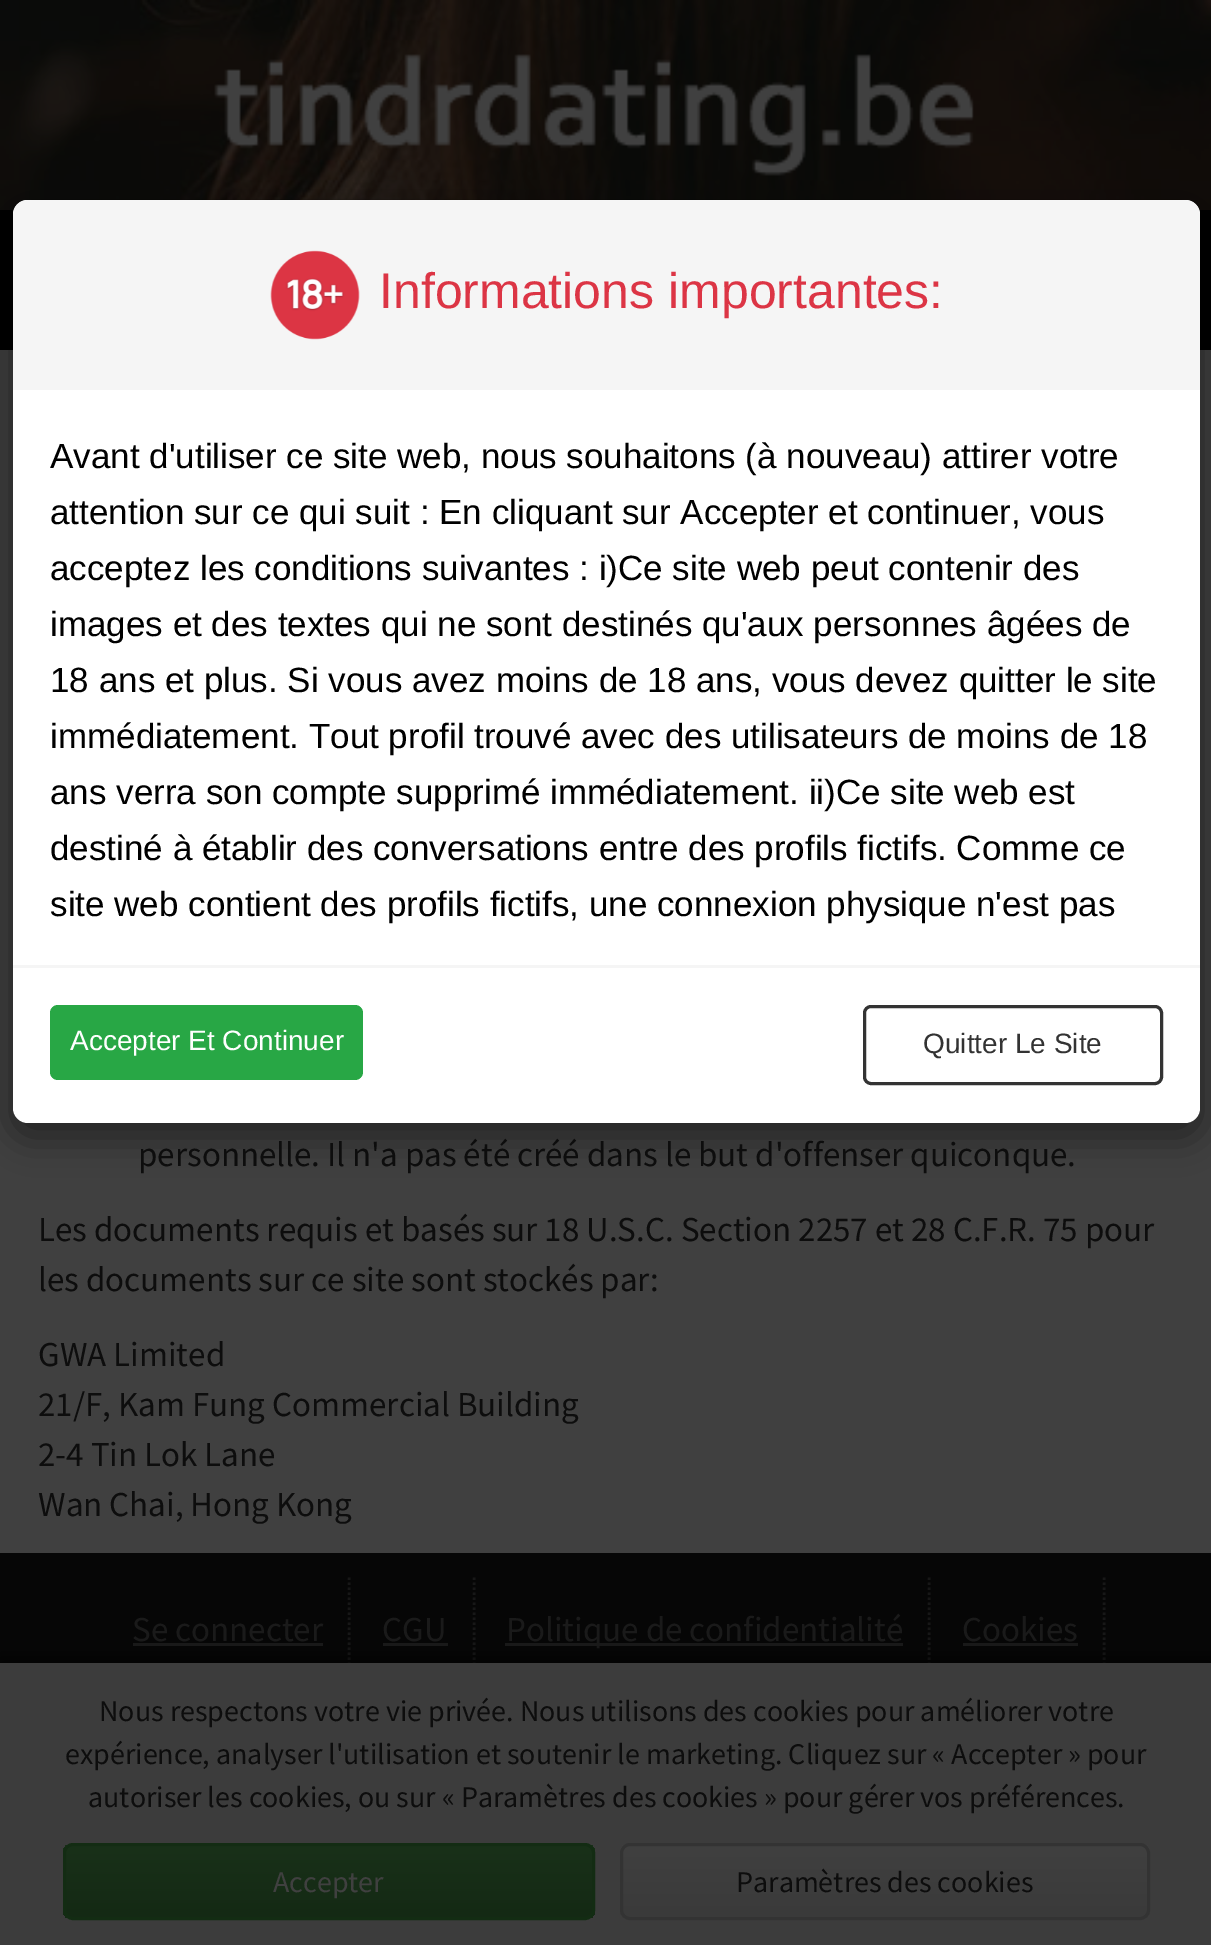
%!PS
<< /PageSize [1211 1945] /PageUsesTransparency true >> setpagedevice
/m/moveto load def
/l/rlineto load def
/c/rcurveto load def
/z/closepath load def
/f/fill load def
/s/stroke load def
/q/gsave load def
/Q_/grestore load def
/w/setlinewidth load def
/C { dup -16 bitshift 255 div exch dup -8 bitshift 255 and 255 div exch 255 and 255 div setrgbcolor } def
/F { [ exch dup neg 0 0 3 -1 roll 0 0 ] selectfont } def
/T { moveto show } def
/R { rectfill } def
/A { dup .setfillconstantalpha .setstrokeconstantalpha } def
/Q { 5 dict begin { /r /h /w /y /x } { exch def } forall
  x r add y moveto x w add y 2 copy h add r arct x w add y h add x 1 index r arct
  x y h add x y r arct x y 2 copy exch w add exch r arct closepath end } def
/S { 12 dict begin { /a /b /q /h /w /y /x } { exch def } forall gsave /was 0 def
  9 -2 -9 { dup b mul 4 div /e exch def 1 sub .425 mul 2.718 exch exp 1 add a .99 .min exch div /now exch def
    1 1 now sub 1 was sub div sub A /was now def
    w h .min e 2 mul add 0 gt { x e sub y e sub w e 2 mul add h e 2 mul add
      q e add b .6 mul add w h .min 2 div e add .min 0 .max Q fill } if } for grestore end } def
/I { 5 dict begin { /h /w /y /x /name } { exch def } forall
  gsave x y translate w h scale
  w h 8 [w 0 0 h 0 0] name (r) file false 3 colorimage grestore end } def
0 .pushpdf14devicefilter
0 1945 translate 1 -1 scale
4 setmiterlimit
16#404040 C
0 0 1211 1945 R
(2.rgb) 0 0 1211 210 I
(3.rgb) 214 54 760 122 I
16#000000 C
0 210 1211 140 R
13 213 1187 922 15 19 .5 S
16#FFFFFF C
13 200 1187 923 15 Q f
16#F5F5F5 C
28 200 m 1157 0 l 8.5 0 15 6.5 15 15 c 0 175 l -1187 0 l 0 -175 l 0 -8.5 6.5 -15 15 -15 c z f
(1.rgb) 270 250 90 90 I
/LiberationSans-Regular 50 F
16#DC3545 C
(Informations importantes:) 379 308 T
/LiberationSans-Regular 35 F
16#000000 C
(Avant d'utiliser ce site web, nous souhaitons \(à nouveau\) attirer votre) 50 468 T
(attention sur ce qui suit : En cliquant sur Accepter et continuer, vous) 50 524 T
(acceptez les conditions suivantes : i\)Ce site web peut contenir des) 50 580 T
(images et des textes qui ne sont destinés qu'aux personnes âgées de) 50 636 T
(18 ans et plus. Si vous avez moins de 18 ans, vous devez quitter le site) 50 692 T
(immédiatement. Tout profil trouvé avec des utilisateurs de moins de 18) 50 748 T
(ans verra son compte supprimé immédiatement. ii\)Ce site web est) 50 804 T
(destiné à établir des conversations entre des profils fictifs. Comme ce) 50 860 T
(site web contient des profils fictifs, une connexion physique n'est pas) 50 916 T
16#F5F5F5 C
13 965 1187 3 R
16#28A745 C
50 1005 313 75 8 Q f
/LiberationSans-Regular 28 F
16#FFFFFF C
(Accepter Et Continuer) 70 1050 T
16#333333 C
3 w
864.5 1006.5 297 77 6.5 Q s
(Quitter Le Site) 923 1053 T
/SourceSansPro-Regular 35 F
16#0D0D0D C
(personnelle. Il n'a pas été créé dans le but d'offenser quiconque.) 138 1166 T
(Les documents requis et basés sur 18 U.S.C. Section 2257 et 28 C.F.R. 75 pour) 38 1241 T
(les documents sur ce site sont stockés par:) 38 1291 T
(GWA Limited) 38 1366 T
(21/F, Kam Fung Commercial Building) 38 1416 T
(2-4 Tin Lok Lane) 38 1466 T
(Wan Chai, Hong Kong) 38 1516 T
16#060606 C
0 1553 1211 110 R
16#171717 C
2.5 w
[2.5 2.5] 0 setdash
349 1577.5 m 0 100 l s
16#1A1A1A C
(Se connecter) 132 1641 T
133 1643 190 3 R
16#171717 C
474 1577.5 m 0 100 l s
16#1A1A1A C
(CGU) 382 1641 T
383 1643 65 3 R
16#171717 C
929 1577.5 m 0 100 l s
16#1A1A1A C
505 1643 398 3 R
(Politique de confidentialité) 506 1641 T
16#171717 C
1104 1577.5 m 0 100 l s
16#1A1A1A C
(Cookies) 962 1641 T
963 1643 115 3 R
16#000000 C
0 1663 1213 282 0 10 1 S
16#3C3C3C C
0 1663 1211 282 R
/SourceSansPro-Regular 30 F
16#0D0D0D C
(Nous respectons votre vie privée. Nous utilisons des cookies pour améliorer votre) 99 1721 T
(expérience, analyser l'utilisation et soutenir le marketing. Cliquez sur « Accepter » pour) 65 1764 T
(autoriser les cookies, ou sur « Paramètres des cookies » pour gérer vos préférences.) 88 1807 T
q
63 1843 532 77 10 Q clip newpath
q 63 1845 m 532 0 l 0 73 l -532 0 l z clip newpath
<< /ShadingType 2 /ColorSpace /DeviceRGB /Coords [329 1845 329 1918] /Extend [true true] /Function << /FunctionType 2 /Domain [0 1] /C0 [.098 .192 .098] /C1 [.078 .161 .078] /N 1 >> >> shfill Q_
Q_
16#132C13 C
3 w
[] 0 setdash
64.5 1844.5 529 74 8.5 Q s
16#404040 C
(Accepter) 273 1892 T
q
620 1843 530 77 10 Q clip newpath
q 620 1845 m 530 0 l 0 73 l -530 0 l z clip newpath
<< /ShadingType 2 /ColorSpace /DeviceRGB /Coords [885 1845 885 1918] /Extend [true true] /Function << /FunctionType 2 /Domain [0 1] /C0 [.251 .251 .251] /C1 [.227 .227 .227] /N 1 >> >> shfill Q_
Q_
16#333333 C
621.5 1844.5 527 74 8.5 Q s
16#0D0D0D C
(Paramètres des cookies) 736 1892 T
.poppdf14devicefilter showpage
